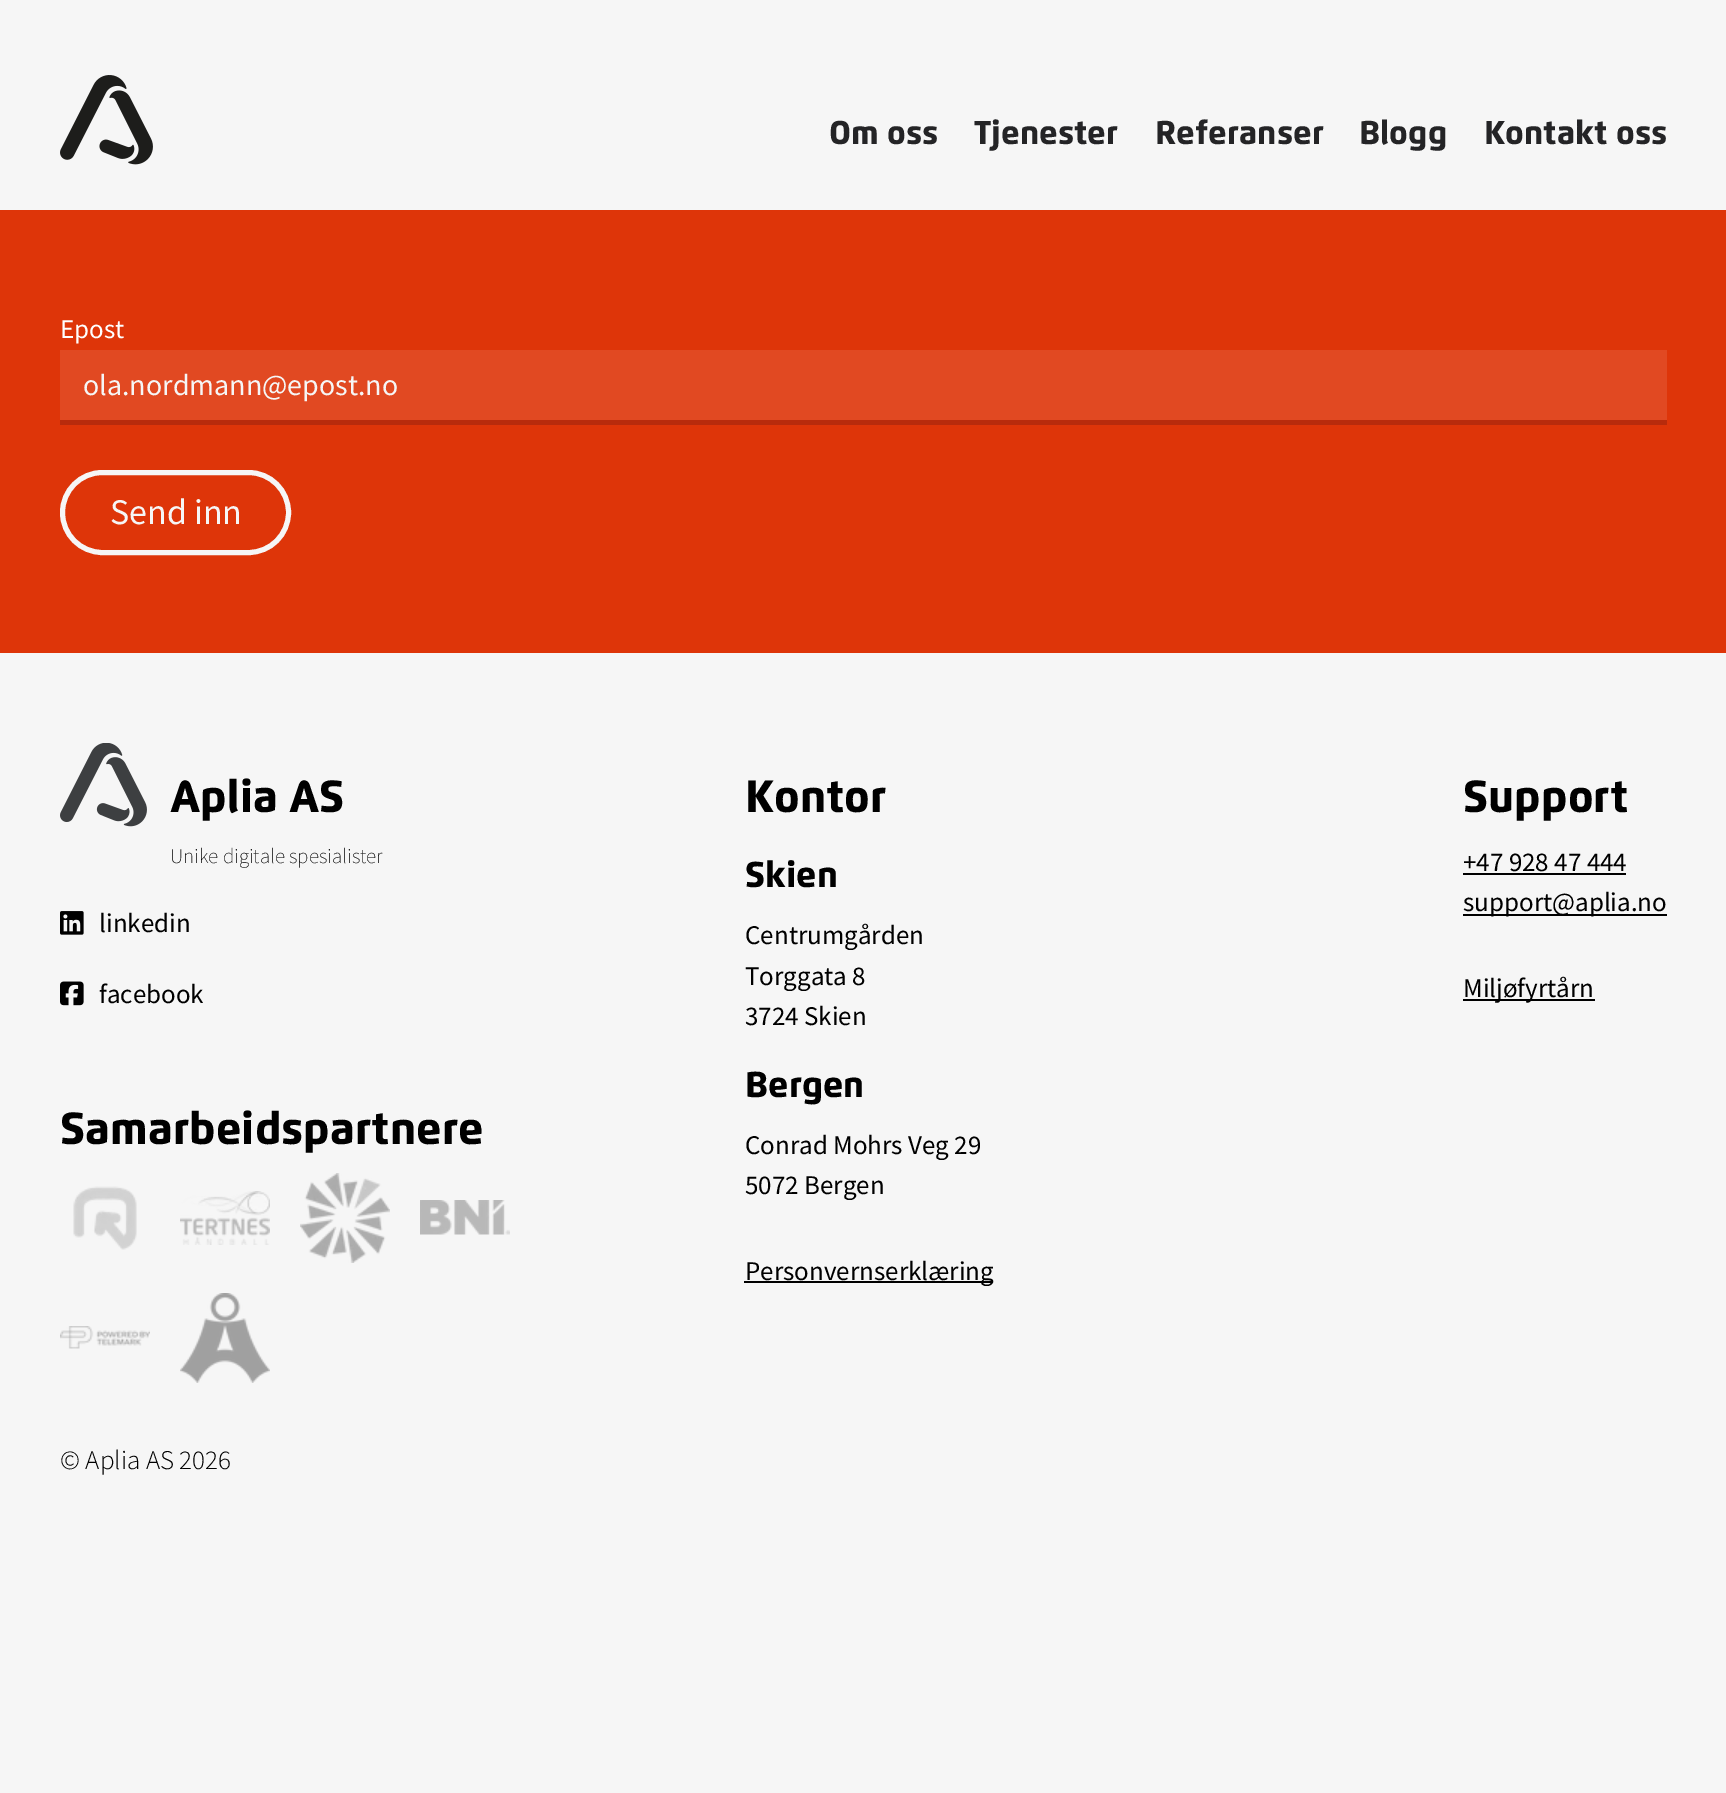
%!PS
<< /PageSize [1726 1793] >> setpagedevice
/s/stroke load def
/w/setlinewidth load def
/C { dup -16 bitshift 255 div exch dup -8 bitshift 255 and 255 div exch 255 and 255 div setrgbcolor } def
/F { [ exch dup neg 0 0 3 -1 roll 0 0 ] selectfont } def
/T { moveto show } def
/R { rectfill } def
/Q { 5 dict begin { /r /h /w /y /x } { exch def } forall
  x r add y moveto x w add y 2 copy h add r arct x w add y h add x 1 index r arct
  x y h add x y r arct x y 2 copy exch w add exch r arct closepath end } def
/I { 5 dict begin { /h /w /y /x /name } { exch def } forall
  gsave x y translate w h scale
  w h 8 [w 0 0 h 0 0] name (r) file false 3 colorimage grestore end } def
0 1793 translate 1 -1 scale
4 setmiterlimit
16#F6F6F6 C
0 0 1726 1793 R
(1.rgb) 60 75 93 90 I
/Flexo-Black 33 F
16#242426 C
(Om oss) 829 144 T
(Tjenester) 974 144 T
(Referanser) 1155 144 T
(Blogg) 1359 144 T
(Kontakt oss) 1484 144 T
16#DE3509 C
0 210 1726 443 R
/SourceSansPro-Regular 27 F
16#FFFFFF C
(Epost) 60 338 T
16#E14922 C
60 350 1607 70 R
16#B82B0C C
60 420 1607 5 R
/SourceSansPro-Regular 30 F
16#F6F6F6 C
(ola.nordmann@epost.no) 83 395 T
5 w
62.5 472.5 226 80 40 Q s
/SourceSansPro-Regular 36 F
(Send inn) 110 524 T
(2.rgb) 60 743 87 84 I
/Flexo-Black 45 F
16#000000 C
(Aplia AS) 170 812 T
/SourceSansPro-ExtraLight 21 F
(Unike digitale spesialister) 170 863 T
(3.rgb) 60 911 24 24 I
/SourceSansPro-Regular 27 F
(linkedin) 99 932 T
(4.rgb) 60 981 24 25 I
(facebook) 99 1003 T
/Flexo-Black 45 F
(Samarbeidspartnere) 60 1144 T
(5.rgb) 73 1186 64 64 I
(6.rgb) 180 1191 90 54 I
(7.rgb) 300 1173 90 90 I
(8.rgb) 420 1200 90 35 I
(9.rgb) 60 1326 90 23 I
(10.rgb) 180 1293 90 90 I
(Kontor) 745 812 T
/Flexo-Black 36 F
(Skien) 745 887 T
/SourceSansPro-Regular 27 F
(Centrumgården) 745 944 T
(Torggata 8) 745 985 T
(3724 Skien) 745 1025 T
/Flexo-Black 36 F
(Bergen) 745 1097 T
/SourceSansPro-Regular 27 F
(Conrad Mohrs Veg 29) 745 1154 T
(5072 Bergen) 745 1194 T
744 1281 249 2 R
(Personvernserklæring) 745 1280 T
/Flexo-Black 45 F
(Support) 1463 812 T
/SourceSansPro-Regular 27 F
(+47 928 47 444) 1463 871 T
1463 873 163 2 R
1463 914 204 2 R
(support@aplia.no) 1463 911 T
1463 999 132 2 R
(Miljøfyrtårn) 1463 997 T
/SourceSansPro-Light 27 F
(© Aplia AS 2026) 60 1469 T
showpage
